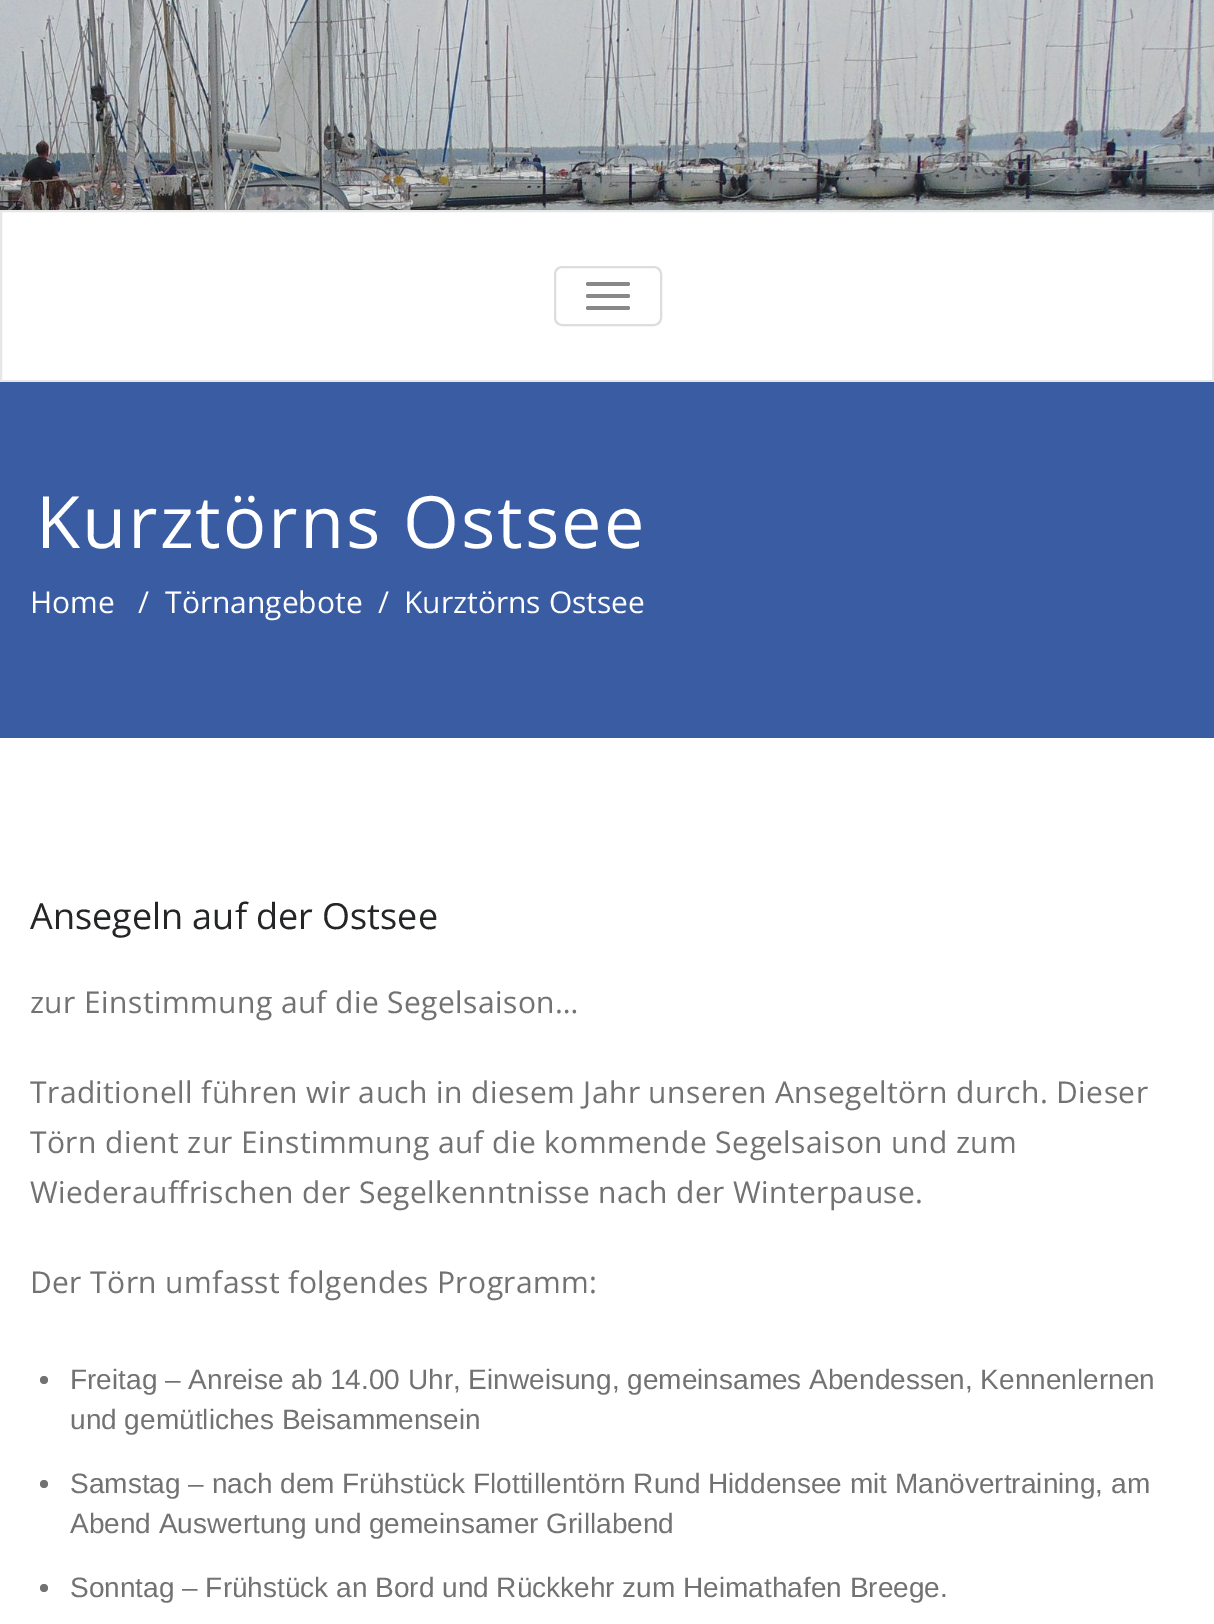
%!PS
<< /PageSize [1214 1624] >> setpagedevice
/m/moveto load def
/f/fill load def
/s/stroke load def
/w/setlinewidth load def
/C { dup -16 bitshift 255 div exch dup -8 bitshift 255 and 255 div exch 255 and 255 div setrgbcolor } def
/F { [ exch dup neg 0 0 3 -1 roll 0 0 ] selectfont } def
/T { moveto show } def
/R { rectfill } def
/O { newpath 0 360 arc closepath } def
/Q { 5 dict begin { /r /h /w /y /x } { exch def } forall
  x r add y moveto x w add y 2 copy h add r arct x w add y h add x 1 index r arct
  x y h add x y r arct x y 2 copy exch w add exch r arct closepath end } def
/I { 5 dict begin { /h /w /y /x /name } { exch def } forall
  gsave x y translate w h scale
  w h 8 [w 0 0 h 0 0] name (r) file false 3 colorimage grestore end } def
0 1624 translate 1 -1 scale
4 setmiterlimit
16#FFFFFF C
0 0 1214 1624 R
(1.rgb) 0 0 1214 210 I
16#E7E7E7 C
2 w
1 211 1212 170 rectstroke
16#DDDDDD C
555 267 106 58 7 Q s
16#888888 C
586 282 44 4 2 Q f
586 294 44 4 2 Q f
586 306 44 4 2 Q f
16#395CA3 C
0 382 1214 356 R
/OpenSans-Regular 72 F
16#FFFFFF C
36 548 m 2 0 (Kurztörns Ostsee) ashow
/OpenSans-Regular 30 F
(Home) 30 613 T
(/) 138 613 T
(Törnangebote) 165 613 T
(/) 378 613 T
(Kurztörns Ostsee) 404 613 T
/OpenSans-Regular 36 F
16#242526 C
(Ansegeln auf der Ostsee) 30 929 T
/OpenSans-Regular 30 F
16#727272 C
30 1013 m .4 0 (zur Einstimmung auf die Segelsaison…) ashow
30 1103 m .4 0 (Traditionell führen wir auch in diesem Jahr unseren Ansegeltörn durch. Dieser) ashow
30 1153 m .4 0 (Törn dient zur Einstimmung auf die kommende Segelsaison und zum) ashow
30 1203 m .4 0 (Wiederauffrischen der Segelkenntnisse nach der Winterpause.) ashow
30 1293 m .4 0 (Der Törn umfasst folgendes Programm:) ashow
44 1380 4 O f
/LiberationSans-Regular 28 F
(Freitag – Anreise ab 14.00 Uhr, Einweisung, gemeinsames Abendessen, Kennenlernen) 70 1389 T
(und gemütliches Beisammensein) 70 1429 T
44 1484 4 O f
(Samstag – nach dem Frühstück Flottillentörn Rund Hiddensee mit Manövertraining, am) 70 1493 T
(Abend Auswertung und gemeinsamer Grillabend) 70 1533 T
44 1588 4 O f
(Sonntag – Frühstück an Bord und Rückkehr zum Heimathafen Breege.) 70 1597 T
showpage
